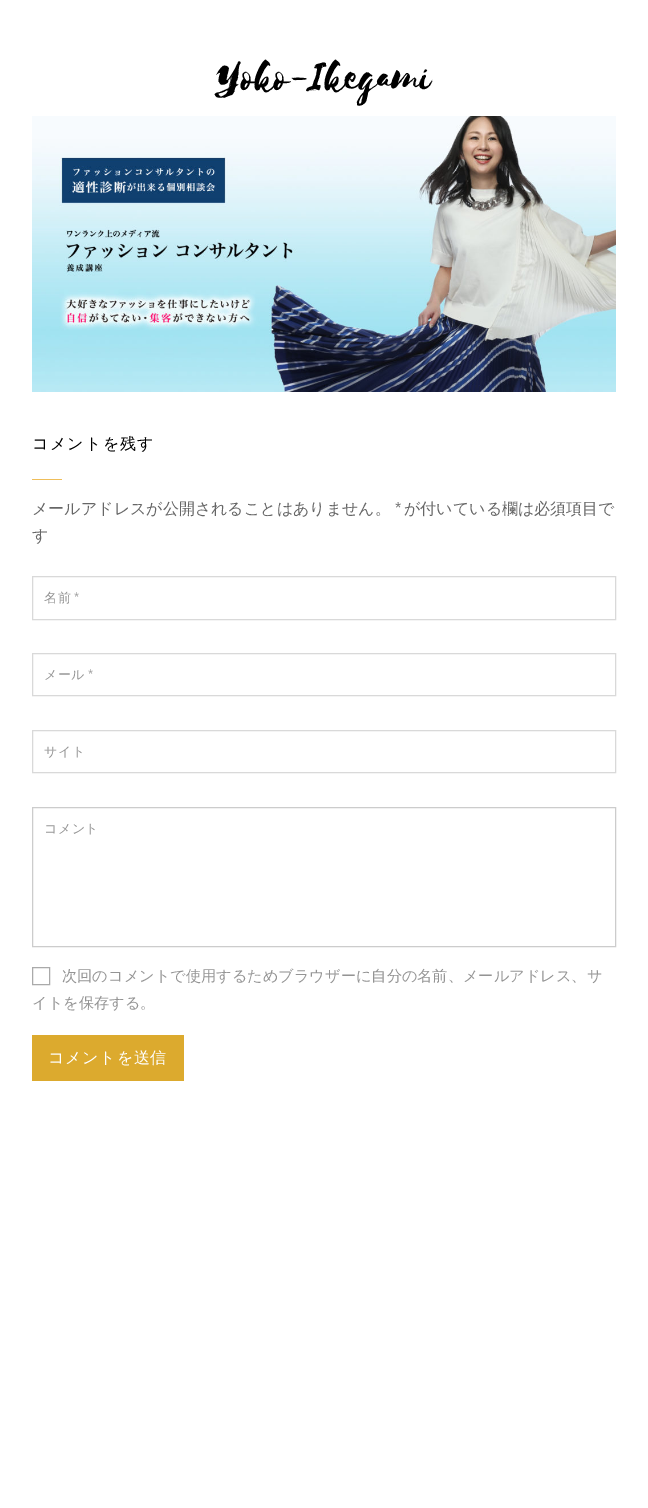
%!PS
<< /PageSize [648 1508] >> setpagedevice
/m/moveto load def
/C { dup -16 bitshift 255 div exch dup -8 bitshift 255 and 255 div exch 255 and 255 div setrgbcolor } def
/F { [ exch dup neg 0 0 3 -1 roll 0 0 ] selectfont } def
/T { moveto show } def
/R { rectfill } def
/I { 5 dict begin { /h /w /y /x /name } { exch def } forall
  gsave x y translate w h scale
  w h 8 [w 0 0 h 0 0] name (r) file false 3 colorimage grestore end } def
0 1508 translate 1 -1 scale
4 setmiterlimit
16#FFFFFF C
0 0 648 1508 R
/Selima-Regular 48 F
16#000000 C
218 91 m -1.5 0 (Yoko-Ikegami) ashow
(1.rgb) 32 116 584 276 I
/WenQuanYiZenHei-Medium 16 F
32 449 m 1.25 0 (コメントを残す) ashow
16#EFBE5A C
32 479 30 1 R
16#666666 C
(メールアドレスが公開されることはありません。) 32 514 T
/LibreFranklin-Regular 16 F
(*) 395 514 T
/WenQuanYiZenHei-Medium 16 F
(が付いている欄は必須項目で) 404 514 T
(す) 32 541 T
16#D9D9D9 C
32.5 576.5 583 43 rectstroke
/WenQuanYiZenHei-Medium 13 F
16#949494 C
44 602 m .5 0 (名前) ashow
/LibreFranklin-Regular 13 F
74 602 m .5 0 (*) ashow
16#D9D9D9 C
32.5 653.5 583 42 rectstroke
/WenQuanYiZenHei-Medium 13 F
16#949494 C
44 679 m .5 0 (メール) ashow
/LibreFranklin-Regular 13 F
88 679 m .5 0 (*) ashow
16#D9D9D9 C
32.5 730.5 583 42 rectstroke
/WenQuanYiZenHei-Medium 13 F
16#949494 C
44 756 m .5 0 (サイト) ashow
16#CCCCCC C
32.5 807.5 583 139 rectstroke
16#949494 C
44 833 m .5 0 (コメント) ashow
16#AAAAAA C
32.5 967.5 17 17 rectstroke
/WenQuanYiZenHei-Medium 15.2 F
16#949494 C
(次回のコメントで使用するためブラウザーに自分の名前、メールアドレス、サ) 62 981 T
(イトを保存する。) 32 1008 T
16#DCAA2E C
32 1035 152 46 R
/WenQuanYiZenHei-Medium 16 F
16#FFFFFF C
48 1063 m .75 0 (コメントを送信) ashow
showpage
